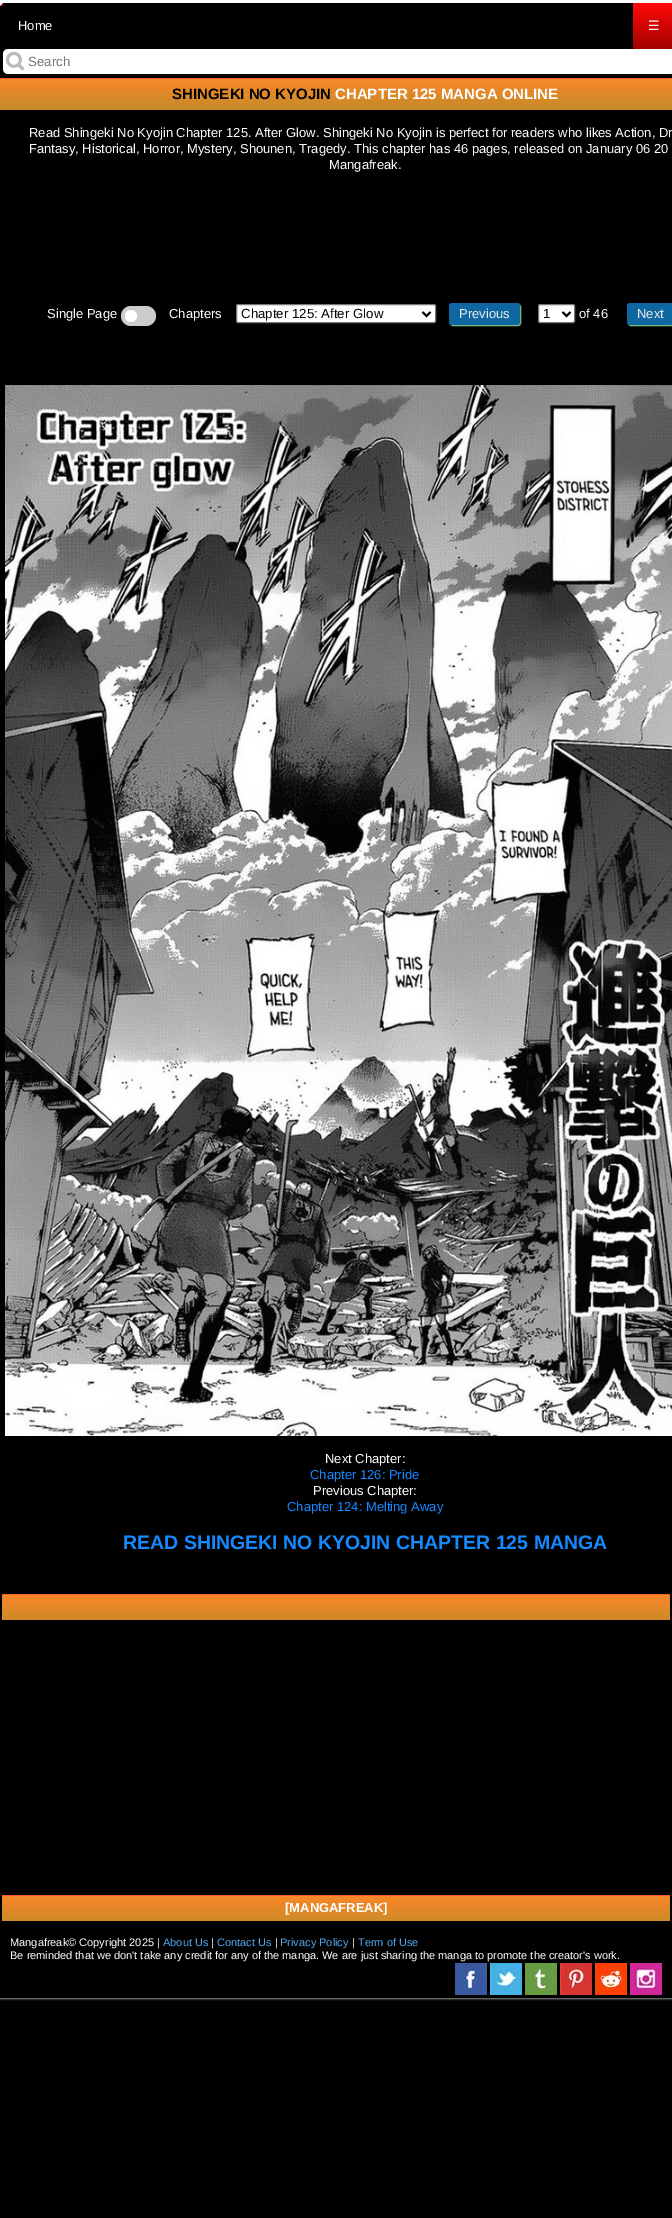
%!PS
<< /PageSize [672 2218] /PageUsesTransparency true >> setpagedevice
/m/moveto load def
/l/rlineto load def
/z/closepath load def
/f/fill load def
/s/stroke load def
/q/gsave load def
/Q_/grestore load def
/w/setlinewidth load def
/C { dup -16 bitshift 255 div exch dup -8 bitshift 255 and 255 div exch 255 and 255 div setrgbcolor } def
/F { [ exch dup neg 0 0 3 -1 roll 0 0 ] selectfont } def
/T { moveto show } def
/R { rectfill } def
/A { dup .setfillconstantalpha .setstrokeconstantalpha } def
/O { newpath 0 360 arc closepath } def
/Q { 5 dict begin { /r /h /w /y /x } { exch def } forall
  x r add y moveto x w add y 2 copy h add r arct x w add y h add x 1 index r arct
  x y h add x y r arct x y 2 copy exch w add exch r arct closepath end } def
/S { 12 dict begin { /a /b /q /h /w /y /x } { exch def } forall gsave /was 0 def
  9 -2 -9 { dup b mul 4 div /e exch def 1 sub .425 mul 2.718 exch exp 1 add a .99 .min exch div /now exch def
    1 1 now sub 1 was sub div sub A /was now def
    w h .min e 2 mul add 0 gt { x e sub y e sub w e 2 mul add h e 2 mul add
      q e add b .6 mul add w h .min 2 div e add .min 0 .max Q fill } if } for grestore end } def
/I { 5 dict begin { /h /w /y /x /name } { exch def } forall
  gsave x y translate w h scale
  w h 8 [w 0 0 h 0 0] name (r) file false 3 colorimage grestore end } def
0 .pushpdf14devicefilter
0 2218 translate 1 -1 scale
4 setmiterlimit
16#000000 C
0 0 672 2218 R
q
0 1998 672 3 rectclip
16#FFFFFF C
0 0 672 1998 0 1.5 1 S
Q_
16#FFFFFF C
0 0 672 3 R
672 0 m 0 6 l -3 -3 l z f
16#AA0000 C
672 6 m -672 0 l 3 -3 l 666 0 l z f
16#FFFFFF C
0 6 m 0 -6 l 3 3 l z f
16#000000 C
3 3 669 3 R
/LiberationSans-Regular 13 F
16#FFFFFF C
(Home) 18 30 T
q 633 3 m 39 0 l 0 46 l -39 0 l z clip newpath
<< /ShadingType 2 /ColorSpace /DeviceRGB /Coords [654 3 654 49] /Extend [true true] /Function << /FunctionType 2 /Domain [0 1] /C0 [1 .039 .039] /C1 [.639 0 0] /N 1 >> >> shfill Q_
/DejaVuSans-Regular 13 F
(☰) 648 30 T
3 49 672 25 5 Q f
(1.rgb) 5 51 20 20 I
/LiberationSans-Regular 13.25 F
16#757575 C
(Search) 28 66 T
(2.rgb) 0 78 672 32 I
/LiberationSans-Bold 15 F
16#000000 C
(SHINGEKI NO KYOJIN) 172 99 T
16#FFFFFF C
(CHAPTER 125 MANGA ONLINE) 335 99 T
/LiberationSans-Regular 13 F
(Read Shingeki No Kyojin Chapter 125. After Glow. Shingeki No Kyojin is perfect for readers who likes Action, Dr) 29 137 T
(Fantasy, Historical, Horror, Mystery, Shounen, Tragedy. This chapter has 46 pages, released on January 06 20) 29 153 T
(Mangafreak.) 329 169 T
(Single Page) 47 318 T
16#CCCCCC C
121 306 35 20 10 Q f
16#FFFFFF C
131 316 6 O f
(Chapters) 169 318 T
236.5 304.5 199 18 1.5 Q q f Q_
16#767676 C
s
16#000000 C
2 w
422.5 312 m 4 4 l 4 -4 l s
/LiberationSans-Regular 13.25 F
(Chapter 125: After Glow) 241 318 T
16#8DD08F C
450 304 71 22 3 .5 1 S
16#0F67A1 C
449 303 71 22 3 Q f
/LiberationSans-Regular 13 F
16#EBEBEB C
(Previous) 459 318 T
16#FFFFFF C
538.5 304.5 36 18 1.5 Q q f Q_
16#767676 C
1 w
s
16#000000 C
2 w
562.5 312 m 4 4 l 4 -4 l s
/LiberationSans-Regular 13.25 F
(1) 543 318 T
/LiberationSans-Regular 13 F
16#FFFFFF C
(of 46) 579 318 T
16#8DD08F C
628 304 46 22 3 .5 1 S
16#0F67A1 C
627 303 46 22 3 Q f
16#EBEBEB C
(Next) 637 318 T
(3.rgb) 5 385 667 1051 I
16#FFFFFF C
(Next Chapter:) 325 1463 T
16#1589FF C
(Chapter 126: Pride) 310 1479 T
16#FFFFFF C
(Previous Chapter:) 313 1495 T
16#1589FF C
(Chapter 124: Melting Away) 287 1511 T
/LiberationSans-Bold 19.5 F
(READ SHINGEKI NO KYOJIN CHAPTER 125 MANGA) 123 1549 T
(4.rgb) 2 1594 668 26 I
(4.rgb) 2 1895 668 26 I
/LiberationSans-Bold 13 F
16#FFFFFF C
([MANGAFREAK]) 285 1912 T
/LiberationSans-Regular 11 F
(Mangafreak© Copyright 2025 |) 10 1946 T
16#53A6EE C
(About Us) 163 1946 T
16#FFFFFF C
(|) 211 1946 T
16#53A6EE C
(Contact Us) 217 1946 T
16#FFFFFF C
(|) 275 1946 T
16#53A6EE C
(Privacy Policy) 280 1946 T
16#FFFFFF C
(|) 352 1946 T
16#53A6EE C
(Term of Use) 358 1946 T
16#FFFFFF C
(Be reminded that we don't take any credit for any of the manga. We are just sharing the manga to promote the creator's work.) 10 1959 T
(5.rgb) 455 1963 32 32 I
(6.rgb) 490 1963 32 32 I
(7.rgb) 525 1963 32 32 I
(8.rgb) 560 1963 32 32 I
(9.rgb) 595 1963 32 32 I
(10.rgb) 630 1963 32 32 I
.poppdf14devicefilter showpage
